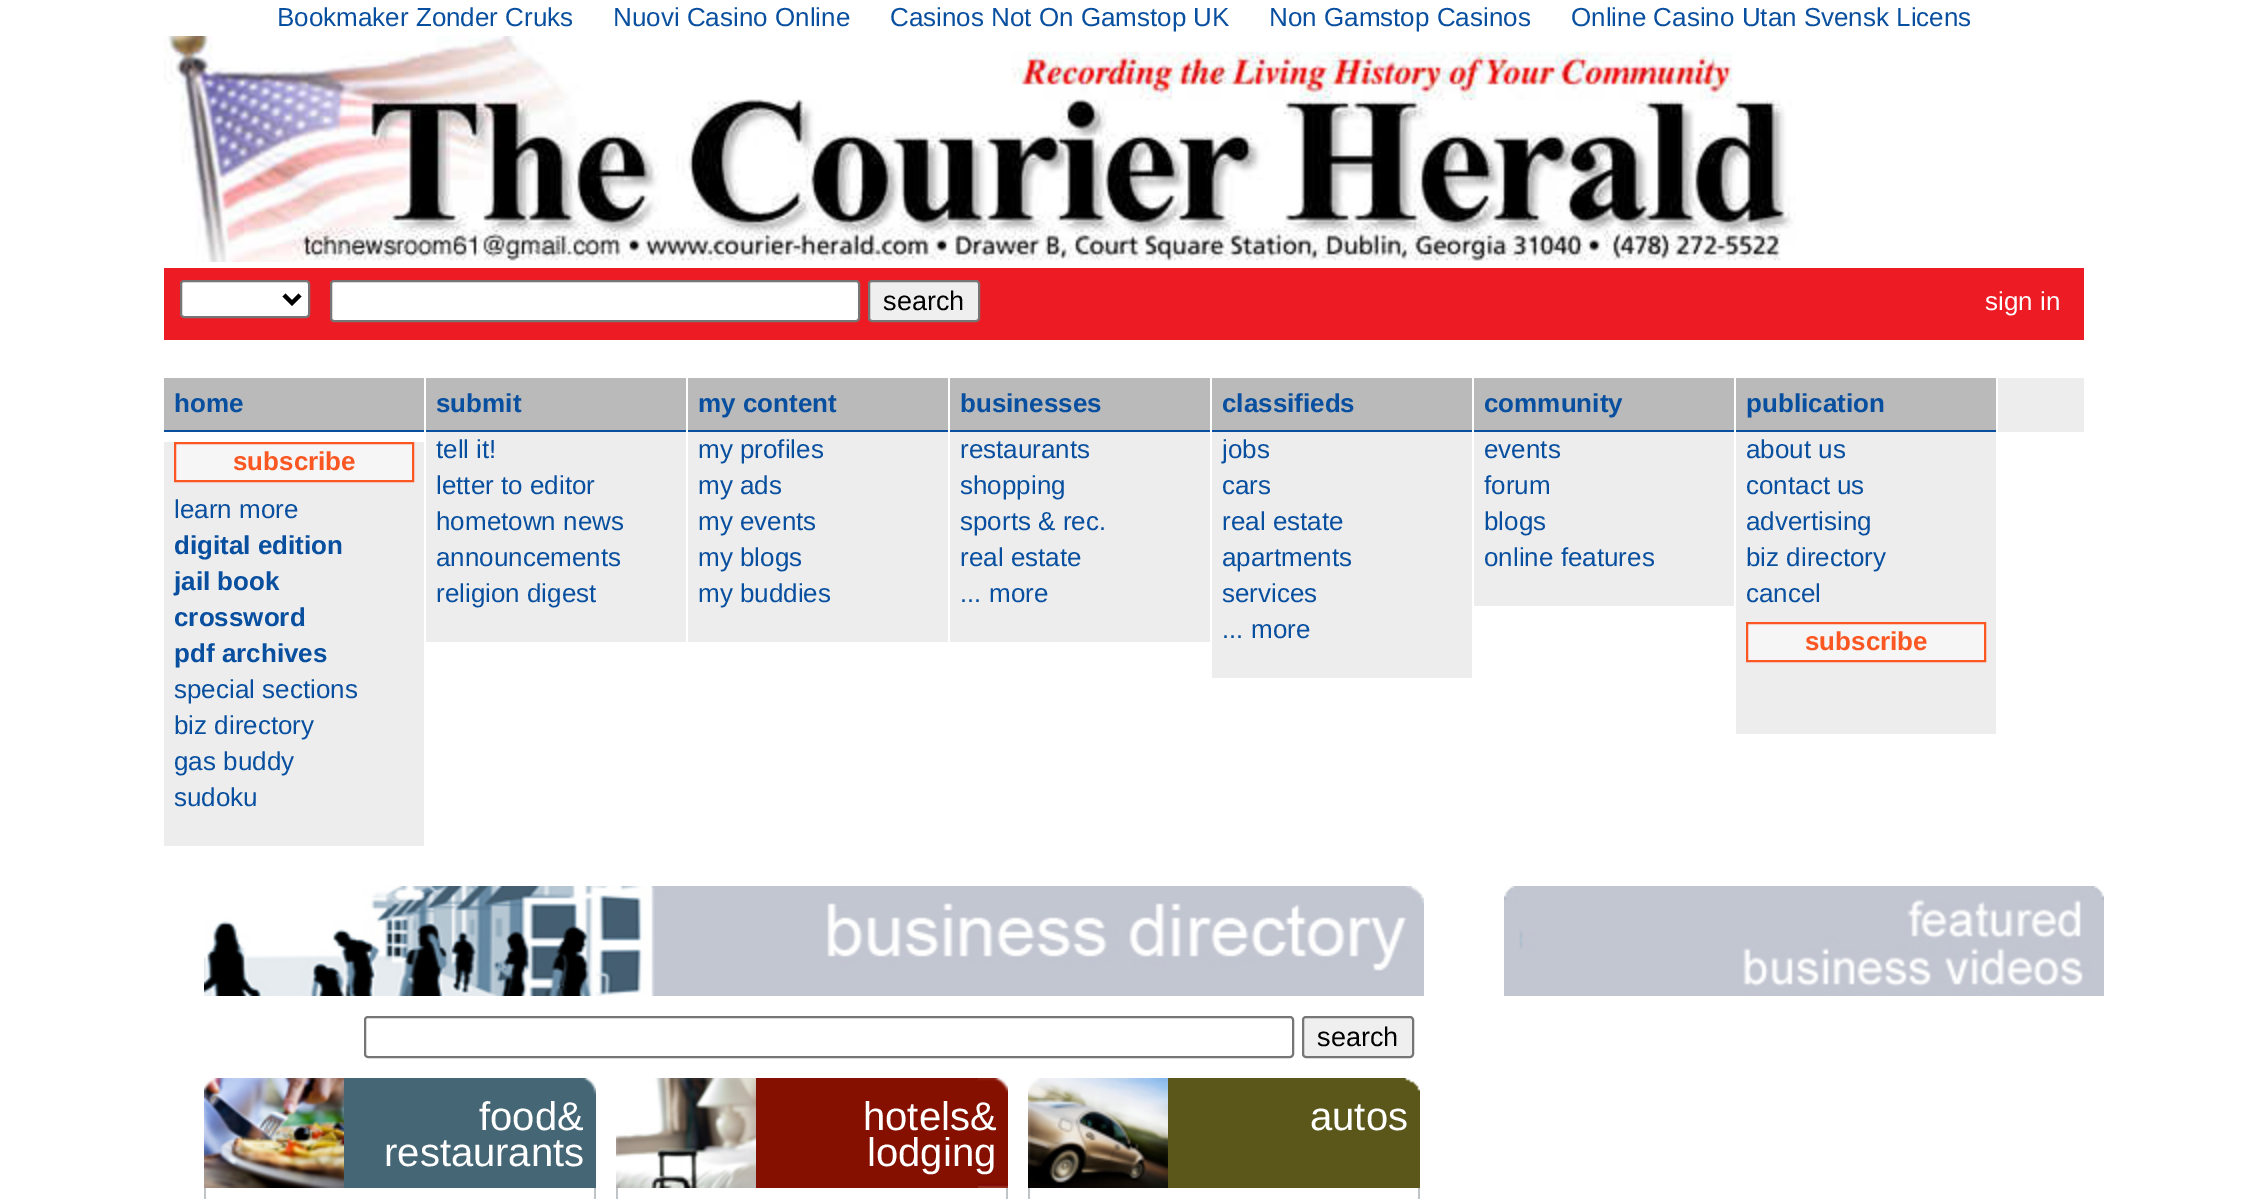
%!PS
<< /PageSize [2247 1199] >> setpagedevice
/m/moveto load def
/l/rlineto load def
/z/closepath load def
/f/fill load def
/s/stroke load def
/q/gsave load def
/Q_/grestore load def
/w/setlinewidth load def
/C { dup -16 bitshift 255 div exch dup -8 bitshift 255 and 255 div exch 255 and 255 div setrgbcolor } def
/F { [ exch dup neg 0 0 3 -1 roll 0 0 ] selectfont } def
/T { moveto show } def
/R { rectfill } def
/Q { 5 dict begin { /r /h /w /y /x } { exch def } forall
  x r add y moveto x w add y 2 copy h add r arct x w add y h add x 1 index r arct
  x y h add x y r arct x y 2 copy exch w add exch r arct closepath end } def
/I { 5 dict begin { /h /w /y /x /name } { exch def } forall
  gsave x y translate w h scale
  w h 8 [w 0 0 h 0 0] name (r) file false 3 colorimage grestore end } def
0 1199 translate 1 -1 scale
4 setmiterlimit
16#FFFFFF C
0 0 2247 1199 R
/LiberationSans-Regular 26 F
16#084F9F C
(Bookmaker Zonder Cruks) 277 26 T
(Nuovi Casino Online) 613 26 T
(Casinos Not On Gamstop UK) 890 26 T
(Non Gamstop Casinos) 1269 26 T
(Online Casino Utan Svensk Licens) 1571 26 T
(1.rgb) 164 36 1632 226 I
16#ED1C24 C
164 268 1920 72 R
16#FFFFFF C
181 281 128 36 3 Q q f Q_
16#767676 C
2 w
s
16#000000 C
4 w
284 295 m 8 8 l 8 -8 l s
16#FFFFFF C
331 281 528 40 3 Q q f Q_
16#767676 C
2 w
s
16#EFEFEF C
869 281 110 40 3 Q q f Q_
16#767676 C
s
/LiberationSans-Regular 27 F
16#000000 C
(search) 883 310 T
/LiberationSans-Regular 26 F
16#FFFFFF C
(sign in) 1985 310 T
16#EDEDED C
1998 378 86 54 R
16#BABABA C
164 378 260 52 R
16#084F9F C
164 430 260 2 R
/LiberationSans-Bold 26 F
(home) 174 412 T
16#EDEDED C
164 442 260 404 R
16#F6F6F6 C
175 443 m 238 0 l 0 38 l -238 0 l z q f Q_
16#FB5722 C
s
(subscribe) 233 470 T
/LiberationSans-Regular 26 F
16#084F9F C
(learn more) 174 518 T
/LiberationSans-Bold 26 F
(digital edition) 174 554 T
(jail book) 174 590 T
(crossword) 174 626 T
(pdf archives) 174 662 T
/LiberationSans-Regular 26 F
(special sections) 174 698 T
(biz directory) 174 734 T
(gas buddy) 174 770 T
(sudoku) 174 806 T
16#BABABA C
426 378 260 52 R
16#084F9F C
426 430 260 2 R
/LiberationSans-Bold 26 F
(submit) 436 412 T
16#EDEDED C
426 432 260 210 R
/LiberationSans-Regular 26 F
16#084F9F C
(tell it!) 436 458 T
(letter to editor) 436 494 T
(hometown news) 436 530 T
(announcements) 436 566 T
(religion digest) 436 602 T
16#BABABA C
688 378 260 52 R
16#084F9F C
688 430 260 2 R
/LiberationSans-Bold 26 F
(my content) 698 412 T
16#EDEDED C
688 432 260 210 R
/LiberationSans-Regular 26 F
16#084F9F C
(my profiles) 698 458 T
(my ads) 698 494 T
(my events) 698 530 T
(my blogs) 698 566 T
(my buddies) 698 602 T
16#BABABA C
950 378 260 52 R
16#084F9F C
950 430 260 2 R
/LiberationSans-Bold 26 F
(businesses) 960 412 T
16#EDEDED C
950 432 260 210 R
/LiberationSans-Regular 26 F
16#084F9F C
(restaurants) 960 458 T
(shopping) 960 494 T
(sports & rec.) 960 530 T
(real estate) 960 566 T
(... more) 960 602 T
16#BABABA C
1212 378 260 52 R
16#084F9F C
1212 430 260 2 R
/LiberationSans-Bold 26 F
(classifieds) 1222 412 T
16#EDEDED C
1212 432 260 246 R
/LiberationSans-Regular 26 F
16#084F9F C
(jobs) 1222 458 T
(cars) 1222 494 T
(real estate) 1222 530 T
(apartments) 1222 566 T
(services) 1222 602 T
(... more) 1222 638 T
16#BABABA C
1474 378 260 52 R
16#084F9F C
1474 430 260 2 R
/LiberationSans-Bold 26 F
(community) 1484 412 T
16#EDEDED C
1474 432 260 174 R
/LiberationSans-Regular 26 F
16#084F9F C
(events) 1484 458 T
(forum) 1484 494 T
(blogs) 1484 530 T
(online features) 1484 566 T
16#BABABA C
1736 378 260 52 R
16#084F9F C
1736 430 260 2 R
/LiberationSans-Bold 26 F
(publication) 1746 412 T
16#EDEDED C
1736 432 260 302 R
/LiberationSans-Regular 26 F
16#084F9F C
(about us) 1746 458 T
(contact us) 1746 494 T
(advertising) 1746 530 T
(biz directory) 1746 566 T
(cancel) 1746 602 T
16#F6F6F6 C
1747 623 m 238 0 l 0 38 l -238 0 l z q f Q_
16#FB5722 C
s
/LiberationSans-Bold 26 F
(subscribe) 1805 650 T
(2.rgb) 1504 886 600 110 I
(3.rgb) 204 886 1220 110 I
16#767676 C
365 1017 928 40 3 Q s
16#EFEFEF C
1303 1017 110 40 3 Q q f Q_
16#767676 C
s
/LiberationSans-Regular 27 F
16#000000 C
(search) 1317 1046 T
16#456675 C
344 1078 252 110 R
(4.rgb) 583 1078 13 17 I
(5.rgb) 204 1078 140 110 I
/LiberationSans-Regular 40 F
16#FFFFFF C
(food&) 479 1130 T
(restaurants) 384 1166 T
16#BFC5C7 C
594 1188 2 11 R
204 1188 2 11 R
16#851000 C
756 1078 222 110 R
(6.rgb) 978 1078 30 110 I
(7.rgb) 616 1078 140 110 I
16#FFFFFF C
(hotels&) 863 1130 T
(lodging) 867 1166 T
16#BFC5C7 C
1006 1188 2 11 R
616 1188 2 11 R
16#5B571A C
1168 1078 252 110 R
(8.rgb) 1405 1078 15 13 I
(9.rgb) 1028 1078 140 110 I
16#FFFFFF C
(autos) 1310 1130 T
16#BFC5C7 C
1418 1188 2 11 R
1028 1188 2 11 R
showpage
